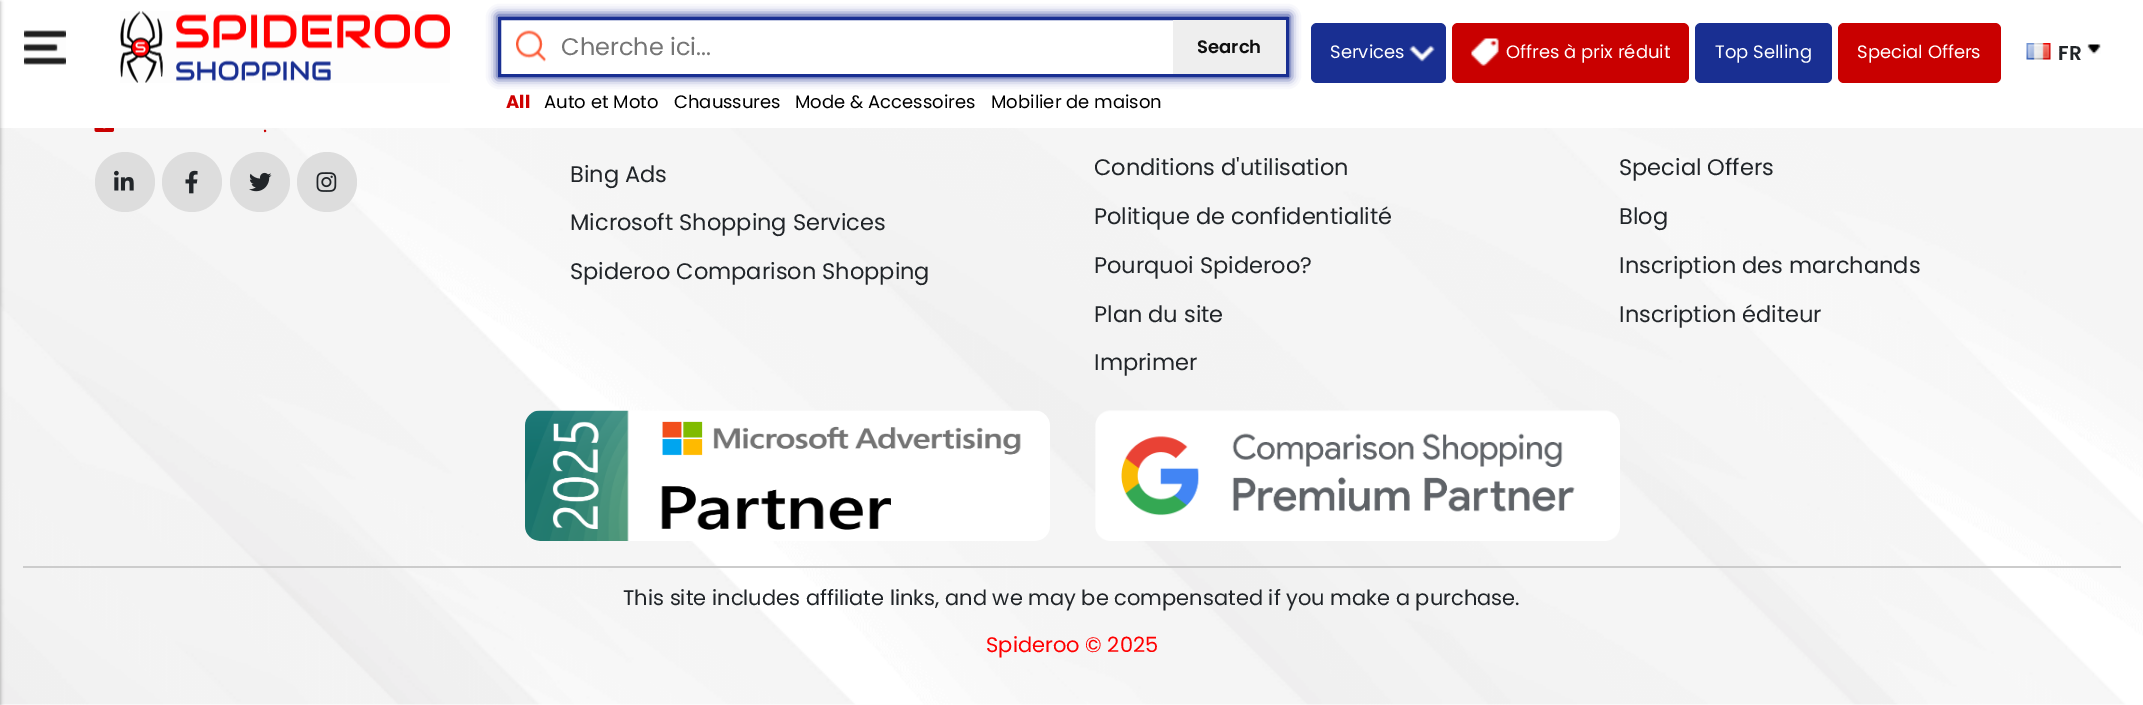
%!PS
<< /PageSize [2143 705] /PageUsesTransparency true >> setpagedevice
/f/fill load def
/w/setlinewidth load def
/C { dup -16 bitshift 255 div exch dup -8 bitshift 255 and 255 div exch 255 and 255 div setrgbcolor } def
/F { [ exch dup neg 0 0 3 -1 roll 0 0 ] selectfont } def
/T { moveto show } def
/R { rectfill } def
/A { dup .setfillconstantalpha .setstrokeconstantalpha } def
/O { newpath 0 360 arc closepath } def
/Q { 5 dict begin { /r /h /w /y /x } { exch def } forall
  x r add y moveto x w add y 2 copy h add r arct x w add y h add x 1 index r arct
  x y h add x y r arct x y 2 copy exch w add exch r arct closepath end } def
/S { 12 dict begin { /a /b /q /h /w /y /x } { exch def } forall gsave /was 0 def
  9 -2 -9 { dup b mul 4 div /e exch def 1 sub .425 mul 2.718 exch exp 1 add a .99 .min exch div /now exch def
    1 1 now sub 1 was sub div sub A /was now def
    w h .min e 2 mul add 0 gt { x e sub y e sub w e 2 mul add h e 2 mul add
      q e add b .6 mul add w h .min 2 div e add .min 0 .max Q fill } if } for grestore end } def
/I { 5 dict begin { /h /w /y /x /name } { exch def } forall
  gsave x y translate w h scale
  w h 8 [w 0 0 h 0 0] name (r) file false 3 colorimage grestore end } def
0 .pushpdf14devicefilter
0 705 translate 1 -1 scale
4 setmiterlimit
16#FFFFFF C
0 0 2143 705 R
(8.rgb) 0 128 2143 577 I
16#000000 C
-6 2 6 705 0 2 .24 S
-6 2 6 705 0 2 .12 S
(1.rgb) 24 30 42 35 I
(2.rgb) 120 11 330 72 I
16#192F92 C
497 15 793 63 0 5 1 S
16#FFFFFF C
501 20 672 54 R
16#192F92 C
3 w
499.5 18.5 788 57 rectstroke
(3.rgb) 516 30 30 32 I
/Poppins-Regular 24 F
16#757575 C
(Cherche ici...) 561 55 T
16#EEEEEE C
1173 20 113 54 R
/Poppins-SemiBold 18 F
16#0F0F0F C
(Search) 1197 53 T
/Poppins-Bold 18 F
16#CF0000 C
(All) 506 108 T
/Poppins-Regular 18 F
16#000000 C
(Auto et Moto) 544 108 T
(Chaussures) 674 108 T
(Mode & Accessoires) 795 108 T
(Mobilier de maison) 991 108 T
16#192F92 C
1311 23 135 60 6 Q f
16#FFFFFF C
(Services) 1330 58 T
(4.rgb) 1409 45 26 17 I
16#C90000 C
1452 23 237 60 6 Q f
(5.rgb) 1471 38 28 28 I
16#FFFFFF C
(Offres à prix réduit) 1506 58 T
16#192F92 C
1695 23 137 60 6 Q f
16#FFFFFF C
(Top Selling) 1715 58 T
16#C90000 C
1838 23 163 60 6 Q f
16#FFFFFF C
(Special Offers) 1857 58 T
(6.rgb) 2026 43 25 17 I
/Poppins-SemiBold 20 F
16#212529 C
(FR) 2058 60 T
(7.rgb) 2087 44 14 10 I
(9.rgb) 94 128 20 4 I
/Poppins-Regular 20 F
16#C90000 C
(.) 263 132 T
16#DDDDDD C
125 182 30 O f
(10.rgb) 114 170 20 21 I
192 182 30 O f
(11.rgb) 185 170 13 24 I
260 182 30 O f
(12.rgb) 249 172 23 20 I
327 182 30 O f
(13.rgb) 316 172 21 20 I
/Poppins-Regular 22.5 F
16#212529 C
(Bing Ads) 570 182 T
(Microsoft Shopping Services) 570 230 T
(Spideroo Comparison Shopping) 570 279 T
(Conditions d'utilisation) 1094 175 T
(Politique de confidentialité) 1094 224 T
(Pourquoi Spideroo?) 1094 273 T
(Plan du site) 1094 322 T
(Imprimer) 1094 370 T
(Special Offers) 1619 175 T
(Blog) 1619 224 T
(Inscription des marchands) 1619 273 T
(Inscription éditeur) 1619 322 T
(14.rgb) 525 410 525 131 I
(15.rgb) 1095 410 525 131 I
16#CCCCCC C
23 566 2098 2 R
/Poppins-Regular 21 F
16#212529 C
(This site includes affiliate links, and we may be compensated if you make a purchase.) 623 605 T
16#FF0000 C
(Spideroo © 2025) 986 652 T
.poppdf14devicefilter showpage
